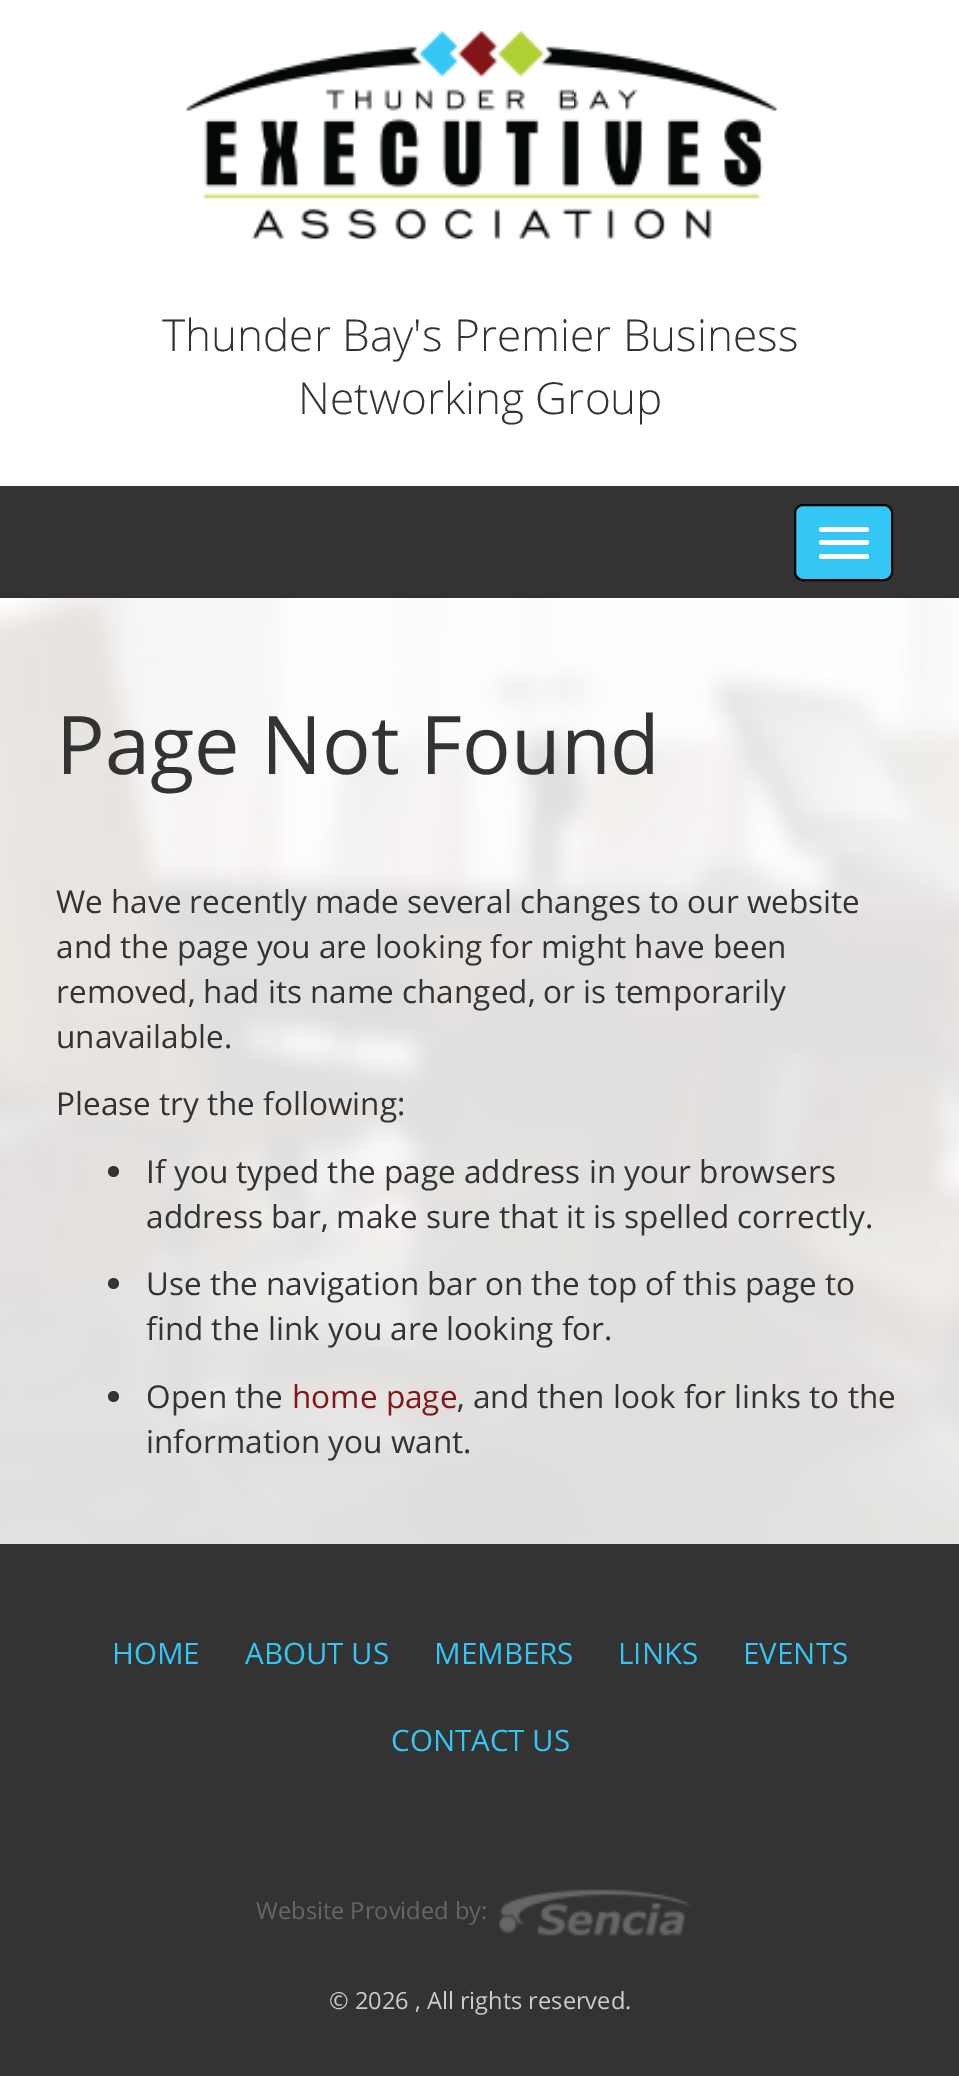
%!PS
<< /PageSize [959 2076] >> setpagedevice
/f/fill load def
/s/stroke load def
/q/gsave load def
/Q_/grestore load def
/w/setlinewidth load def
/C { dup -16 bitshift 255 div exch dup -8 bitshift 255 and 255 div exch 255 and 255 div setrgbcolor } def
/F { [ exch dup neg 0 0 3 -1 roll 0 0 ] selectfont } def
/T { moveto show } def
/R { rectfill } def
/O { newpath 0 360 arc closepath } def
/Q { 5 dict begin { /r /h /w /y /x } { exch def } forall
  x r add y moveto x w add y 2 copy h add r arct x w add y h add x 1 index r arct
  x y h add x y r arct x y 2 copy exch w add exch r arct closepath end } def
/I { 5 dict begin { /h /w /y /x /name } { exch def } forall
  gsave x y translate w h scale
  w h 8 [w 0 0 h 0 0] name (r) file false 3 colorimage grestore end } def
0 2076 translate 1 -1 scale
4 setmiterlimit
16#333333 C
0 0 959 2076 R
16#FFFFFF C
0 0 959 486 R
(1.rgb) 186 31 591 209 I
/OpenSans-Light 44.1 F
16#333333 C
(Thunder Bay's Premier Business) 162 351 T
(Networking Group) 298 414 T
16#34C6F4 C
795 505 97 75 8 Q q f Q_
16#000000 C
2 w
s
16#FFFFFF C
819 527 50 5 2.5 Q f
819 540 50 5 2.5 Q f
819 554 50 5 2.5 Q f
(2.rgb) 0 598 959 946 I
/OpenSans-Regular 81 F
16#333333 C
(Page Not Found) 56 774 T
/OpenSans-Regular 31.5 F
(We have recently made several changes to our website) 56 913 T
(and the page you are looking for might have been) 56 958 T
(removed, had its name changed, or is temporarily) 56 1003 T
(unavailable.) 56 1048 T
(Please try the following:) 56 1115 T
113.5 1171.5 5.5 O f
(If you typed the page address in your browsers) 146 1183 T
(address bar, make sure that it is spelled correctly.) 146 1228 T
113.5 1283.5 5.5 O f
(Use the navigation bar on the top of this page to) 146 1295 T
(find the link you are looking for.) 146 1340 T
113.5 1396.5 5.5 O f
(Open the) 146 1408 T
16#821518 C
(home page) 292 1408 T
16#333333 C
(, and then look for links to the) 457 1408 T
(information you want.) 146 1453 T
/OpenSans-Regular 29.5 F
16#34C6F4 C
(HOME) 112 1664 T
(ABOUT US) 245 1664 T
(MEMBERS) 434 1664 T
(LINKS) 618 1664 T
(EVENTS) 743 1664 T
(CONTACT US) 391 1751 T
/OpenSans-Regular 23.6 F
16#666666 C
(Website Provided by:) 256 1919 T
(3.rgb) 499 1889 192 47 I
16#CCCCCC C
(© 2026 , All rights reserved.) 329 2009 T
showpage
